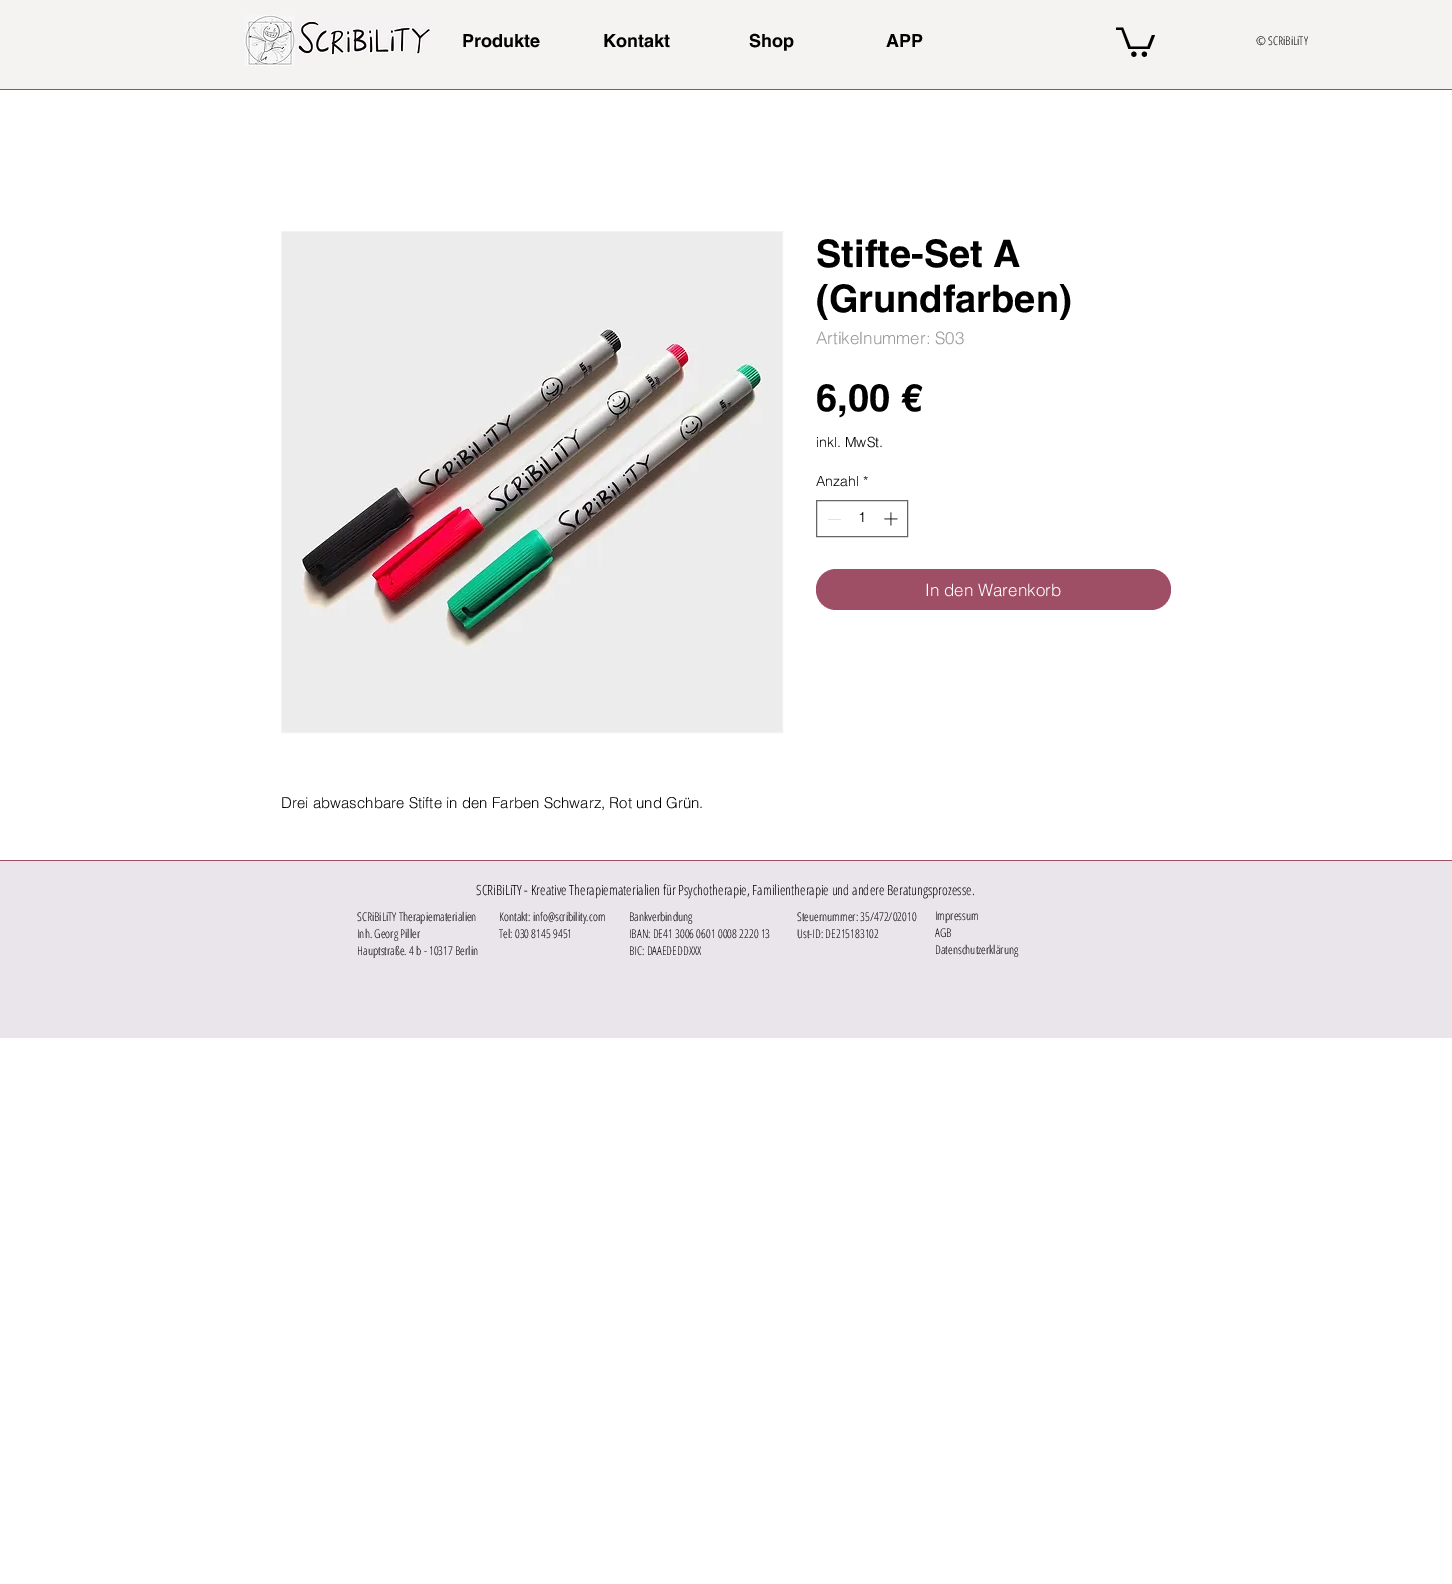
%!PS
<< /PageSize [1452 1584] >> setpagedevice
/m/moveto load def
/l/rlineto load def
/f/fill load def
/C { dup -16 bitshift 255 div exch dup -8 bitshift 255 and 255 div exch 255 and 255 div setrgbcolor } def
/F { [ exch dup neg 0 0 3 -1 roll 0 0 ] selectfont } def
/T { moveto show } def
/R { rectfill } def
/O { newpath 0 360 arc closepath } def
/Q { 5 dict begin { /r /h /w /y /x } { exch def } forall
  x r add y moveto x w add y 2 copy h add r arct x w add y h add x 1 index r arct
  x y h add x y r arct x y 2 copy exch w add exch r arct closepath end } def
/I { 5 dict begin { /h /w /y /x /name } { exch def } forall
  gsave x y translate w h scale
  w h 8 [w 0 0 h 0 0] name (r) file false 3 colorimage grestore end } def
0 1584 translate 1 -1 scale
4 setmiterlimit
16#FFFFFF C
0 0 1452 1584 R
16#9F4F65 C
0 89 1452 1 R
16#F5F2F2 C
0 0 1452 89 R
(1.rgb) 244 15 51 51 I
(2.rgb) 296 20 135 36 I
/helvetica-Bold 18 F
16#000000 C
(Produkte) 462 47 T
(Kontakt) 603 47 T
(Shop) 749 47 T
(APP) 886 47 T
1155 35 m -5.5 14 l -21 0 l -7 -19 l -5.5 0 l 0 -2.5 l 7 0 l 7.5 19 l 17 0 l 4.5 -11.5 l f
1144.4 54.2 2.6 O f
1133.9 54.2 2.6 O f
/OpenSansCondensed-Light 12 F
(© SCRiBiLiTY) 1256 45 T
/helvetica-Bold 38 F
(Stifte-Set A) 816 267 T
(\(Grundfarben\)) 816 312 T
/helvetica-Light 17 F
16#999997 C
(Artikelnummer: S03) 816 344 T
/helvetica-Bold 38 F
16#000000 C
(6,00 €) 816 411 T
/helvetica-Light 14 F
(inkl. MwSt.) 816 447 T
(Anzahl *) 816 486 T
16#666666 C
816.5 500.5 91 36 rectstroke
16#E3E3E3 C
828 519 13 1 R
16#000000 C
(1) 858 522 T
(3.rgb) 884 512 14 14 I
16#9F4F65 C
816 569 355 41 20 Q f
/helvetica-Light 17 F
16#FFFFFF C
(In den Warenkorb) 925 596 T
16#F5F2F2 C
281.5 231.5 501 501 rectstroke
(4.rgb) 282 232 500 500 I
/helvetica-Light 15 F
16#000000 C
(Drei abwaschbare Stifte in den Farben Schwarz, Rot und Grün.) 281 808 T
16#EAE5EA C
0 861 1452 177 R
16#9F4F65 C
0 860 1452 1 R
/OpenSansCondensed-Light 14 F
16#000000 C
(SCRiBiLiTY - Kreative Therapiematerialien für Psychotherapie, Familientherapie und andere Beratungsprozesse.) 476 895 T
/OpenSansCondensed-Light 12 F
(SCRiBiLiTY Therapiematerialien) 357 921 T
(Inh. Georg Piller) 357 938 T
(Hauptstraße. 4 b - 10317 Berlin) 357 955 T
(Kontakt: info@scribility.com) 499 921 T
(Tel: 030 8145 9451) 499 938 T
(Bankverbindung) 629 921 T
(IBAN: DE41 3006 0601 0008 2220 13) 629 938 T
(BIC: DAAEDEDDXXX) 629 955 T
(Steuernummer: 35/472/02010) 797 921 T
(Ust-ID: DE215183102) 797 938 T
(Impressum) 935 920 T
(AGB) 935 937 T
(Datenschutzerklärung) 935 954 T
showpage
